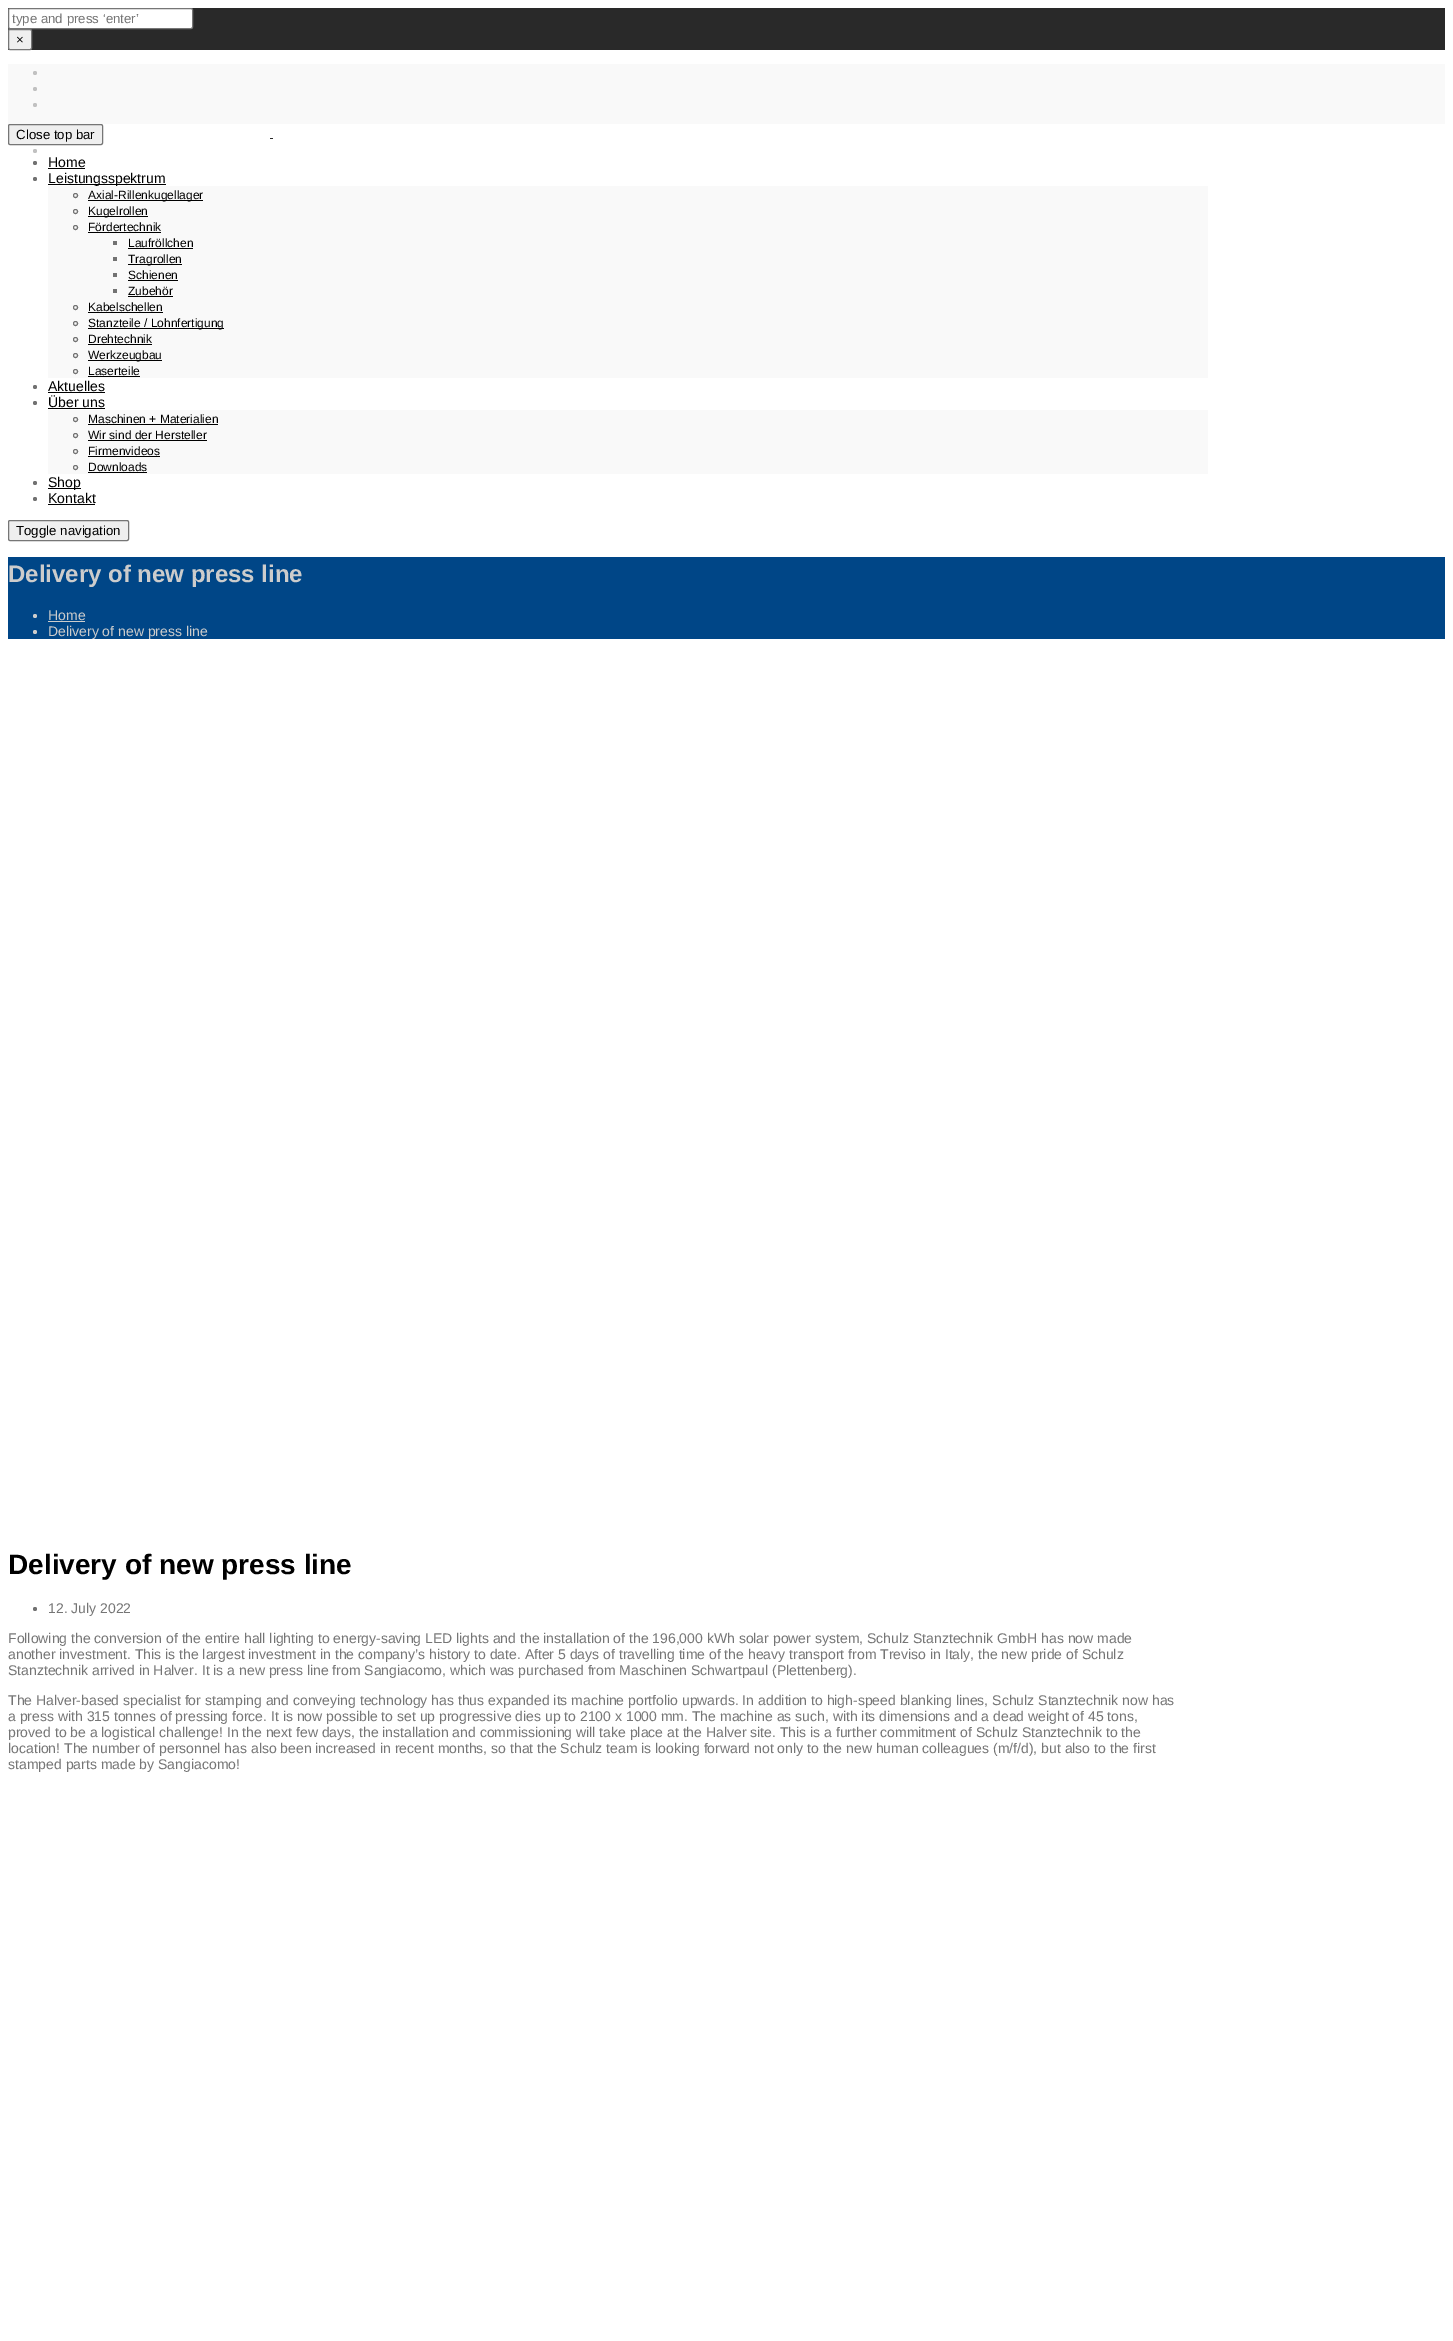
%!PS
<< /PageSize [1453 2341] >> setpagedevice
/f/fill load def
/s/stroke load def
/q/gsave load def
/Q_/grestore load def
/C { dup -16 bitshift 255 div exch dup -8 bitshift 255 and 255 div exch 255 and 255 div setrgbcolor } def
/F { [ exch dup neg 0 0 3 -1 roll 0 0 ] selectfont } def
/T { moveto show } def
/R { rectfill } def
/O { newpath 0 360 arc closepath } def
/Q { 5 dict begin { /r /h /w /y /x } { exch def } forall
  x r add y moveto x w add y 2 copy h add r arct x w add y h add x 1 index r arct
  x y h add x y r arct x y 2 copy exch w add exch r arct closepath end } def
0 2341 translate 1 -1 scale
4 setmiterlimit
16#FFFFFF C
0 0 1453 2341 R
16#292929 C
8 8 1437 42 R
16#FFFFFF C
8.5 8.5 184 20 1.5 Q q f Q_
16#767676 C
s
/LiberationSans-Regular 13.25 F
16#757575 C
(type and press ‘enter’) 12 23 T
16#EFEFEF C
8.5 29.5 23 20 1.5 Q q f Q_
16#767676 C
s
16#000000 C
(×) 16 44 T
16#F9F9F9 C
8 64 1437 60 R
16#C1C1C1 C
35 73 2 O f
35 89 2 O f
35 105 2 O f
35 151 2 O f
16#EFEFEF C
8.5 124.5 94 20 1.5 Q q f Q_
16#767676 C
s
16#000000 C
(Close top bar) 16 139 T
16#292929 C
78 138 4 1 R
270 138 3 1 R
16#727272 C
35 163 2 O f
/LiberationSans-Regular 14 F
16#000000 C
(Home) 48 167 T
48 168 37 1 R
16#727272 C
35 179 2 O f
16#000000 C
48 184 118 1 R
(Leistungsspektrum) 48 183 T
16#F9F9F9 C
48 186 1160 192 R
16#727272 C
75.5 195.5 2 O s
16#000000 C
88 200 115 1 R
/LiberationSans-Regular 12 F
(Axial-Rillenkugellager) 88 199 T
16#727272 C
75.5 211.5 2 O s
16#000000 C
88 216 60 1 R
(Kugelrollen) 88 215 T
16#727272 C
75.5 227.5 2 O s
16#000000 C
(Fördertechnik) 88 231 T
88 232 73 1 R
16#727272 C
113 241 4 4 R
16#000000 C
(Laufröllchen) 128 247 T
128 248 65 1 R
16#727272 C
113 257 4 4 R
16#000000 C
128 264 54 1 R
(Tragrollen) 128 263 T
16#727272 C
113 273 4 4 R
16#000000 C
(Schienen) 128 279 T
128 280 50 1 R
16#727272 C
113 289 4 4 R
16#000000 C
(Zubehör) 128 295 T
128 296 45 1 R
16#727272 C
75.5 307.5 2 O s
16#000000 C
(Kabelschellen) 88 311 T
88 312 75 1 R
16#727272 C
75.5 323.5 2 O s
16#000000 C
88 328 136 1 R
(Stanzteile / Lohnfertigung) 88 327 T
16#727272 C
75.5 339.5 2 O s
16#000000 C
(Drehtechnik) 88 343 T
88 344 64 1 R
16#727272 C
75.5 355.5 2 O s
16#000000 C
88 360 74 1 R
(Werkzeugbau) 88 359 T
16#727272 C
75.5 371.5 2 O s
16#000000 C
(Laserteile) 88 375 T
88 376 52 1 R
16#727272 C
35 387 2 O f
/LiberationSans-Regular 14 F
16#000000 C
(Aktuelles) 48 391 T
48 392 57 1 R
16#727272 C
35 403 2 O f
16#000000 C
(Über uns) 48 407 T
48 408 57 1 R
16#F9F9F9 C
48 410 1160 64 R
16#727272 C
75.5 419.5 2 O s
/LiberationSans-Regular 12 F
16#000000 C
(Maschinen + Materialien) 88 423 T
88 424 130 1 R
16#727272 C
75.5 435.5 2 O s
16#000000 C
(Wir sind der Hersteller) 88 439 T
88 440 119 1 R
16#727272 C
75.5 451.5 2 O s
16#000000 C
(Firmenvideos) 88 455 T
88 456 72 1 R
16#727272 C
75.5 467.5 2 O s
16#000000 C
(Downloads) 88 471 T
88 472 59 1 R
16#727272 C
35 483 2 O f
16#000000 C
48 488 33 1 R
/LiberationSans-Regular 14 F
(Shop) 48 487 T
16#727272 C
35 499 2 O f
16#000000 C
(Kontakt) 48 503 T
48 504 47 1 R
16#EFEFEF C
8.5 520.5 120 20 1.5 Q q f Q_
16#767676 C
s
/LiberationSans-Regular 13.25 F
16#000000 C
(Toggle navigation) 16 535 T
16#004687 C
8 557 1437 82 R
/LiberationSans-Bold 24 F
16#CCCCCC C
(Delivery of new press line) 8 582 T
35 616 2 O f
/LiberationSans-Regular 14 F
(Home) 48 620 T
48 621 37 1 R
35 632 2 O f
(Delivery of new press line) 48 636 T
/LiberationSans-Bold 28 F
16#000000 C
(Delivery of new press line) 8 1574 T
16#727272 C
35 1609 2 O f
/LiberationSans-Regular 14 F
16#757575 C
(12. July 2022) 48 1613 T
(Following the conversion of the entire hall lighting to energy-saving LED lights and the installation of the 196,000 kWh solar power system, Schulz Stanztechnik GmbH has now made) 8 1643 T
(another investment. This is the largest investment in the company’s history to date. After 5 days of travelling time of the heavy transport from Treviso in Italy, the new pride of Schulz) 8 1659 T
(Stanztechnik arrived in Halver. It is a new press line from Sangiacomo, which was purchased from Maschinen Schwartpaul \(Plettenberg\).) 8 1675 T
(The Halver-based specialist for stamping and conveying technology has thus expanded its machine portfolio upwards. In addition to high-speed blanking lines, Schulz Stanztechnik now has) 8 1705 T
(a press with 315 tonnes of pressing force. It is now possible to set up progressive dies up to 2100 x 1000 mm. The machine as such, with its dimensions and a dead weight of 45 tons,) 8 1721 T
(proved to be a logistical challenge! In the next few days, the installation and commissioning will take place at the Halver site. This is a further commitment of Schulz Stanztechnik to the) 8 1737 T
(location! The number of personnel has also been increased in recent months, so that the Schulz team is looking forward not only to the new human colleagues \(m/f/d\), but also to the first) 8 1753 T
(stamped parts made by Sangiacomo!) 8 1769 T
showpage
